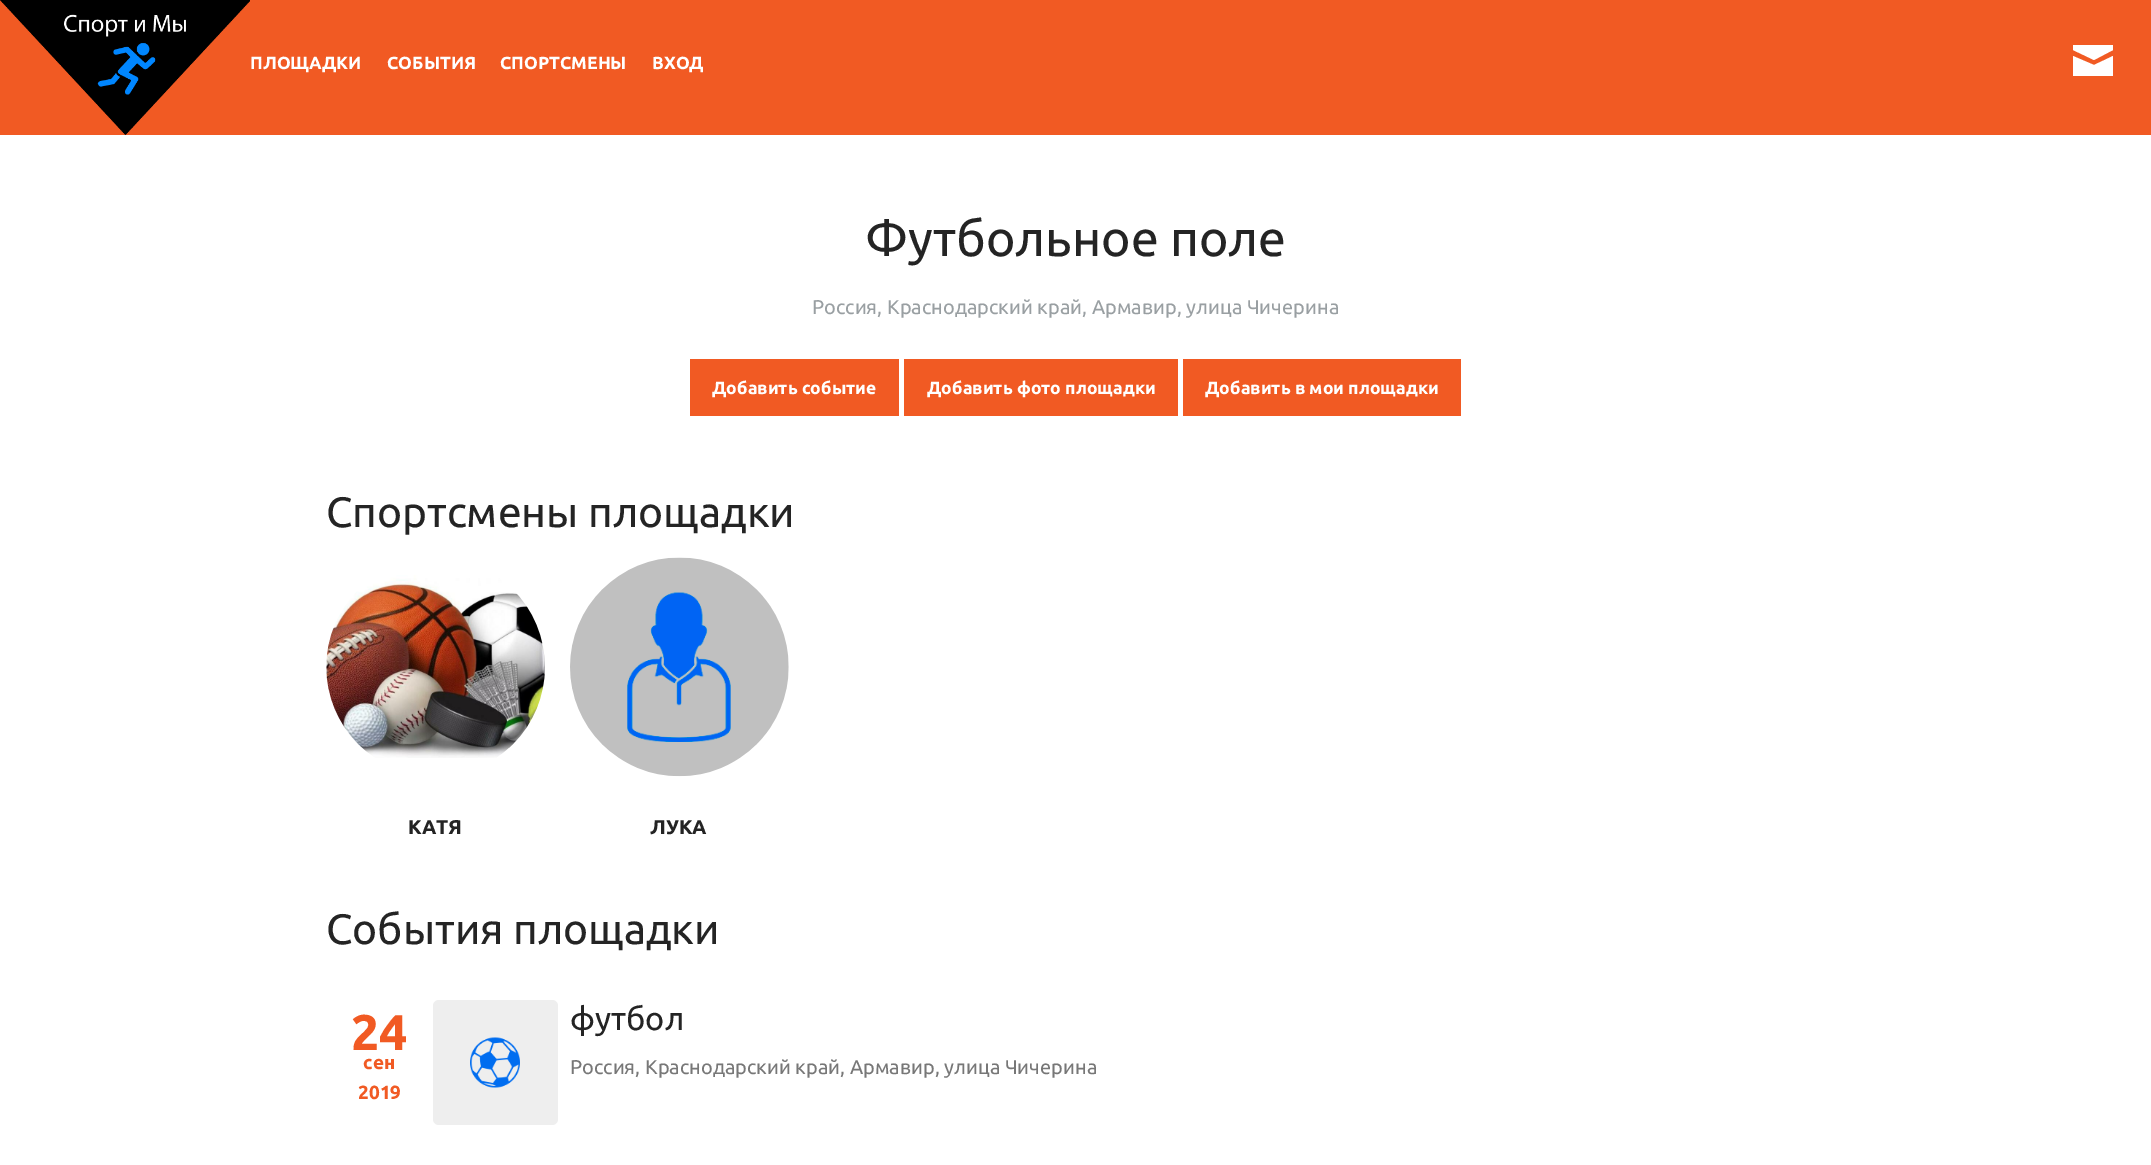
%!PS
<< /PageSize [2151 1165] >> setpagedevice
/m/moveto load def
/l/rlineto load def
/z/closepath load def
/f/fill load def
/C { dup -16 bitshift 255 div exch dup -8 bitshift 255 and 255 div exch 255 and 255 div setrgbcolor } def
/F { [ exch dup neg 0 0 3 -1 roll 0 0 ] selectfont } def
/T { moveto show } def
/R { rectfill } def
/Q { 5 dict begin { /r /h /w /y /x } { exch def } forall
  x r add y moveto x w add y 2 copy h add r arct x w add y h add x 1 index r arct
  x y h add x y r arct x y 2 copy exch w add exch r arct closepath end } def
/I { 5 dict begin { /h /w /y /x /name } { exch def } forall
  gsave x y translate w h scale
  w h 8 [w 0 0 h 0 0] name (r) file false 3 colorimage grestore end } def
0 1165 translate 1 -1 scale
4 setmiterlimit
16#FFFFFF C
0 0 2151 1165 R
16#F15A23 C
0 0 2151 135 R
(1.rgb) 0 0 250 135 I
/Ubuntu-Bold 17.5 F
16#FFFFFF C
(ПЛОЩАДКИ) 250 69 T
(СОБЫТИЯ) 387 69 T
(СПОРТСМЕНЫ) 500 69 T
(ВХОД) 652 69 T
2094 60 m -21 -10 l 0 -5 l 40 0 l 0 5 l z 2094 65 m 19 -9 l 0 20 l -40 0 l 0 -20 l z f
/Ubuntu-Regular 50 F
16#242424 C
(Футбольное поле) 865 256 T
/Ubuntu-Regular 20 F
16#999FA2 C
(Россия, Краснодарский край, Армавир, улица Чичерина) 812 314 T
16#F15A23 C
690 359 209 57 R
/Ubuntu-Bold 17.5 F
16#FFFFFF C
(Добавить событие) 712 394 T
16#F15A23 C
904 359 274 57 R
16#FFFFFF C
(Добавить фото площадки) 927 394 T
16#F15A23 C
1183 359 278 57 R
16#FFFFFF C
(Добавить в мои площадки) 1205 394 T
/Ubuntu-Regular 42.5 F
16#242424 C
(Спортсмены площадки) 326 527 T
(2.rgb) 326 575 219 183 I
/Ubuntu-Bold 20 F
(КАТЯ) 408 834 T
(3.rgb) 570 557 219 220 I
(ЛУКА) 650 834 T
/Ubuntu-Regular 42.5 F
(События площадки) 326 944 T
/Ubuntu-Bold 50 F
16#F15A23 C
(24) 351 1050 T
/Ubuntu-Bold 19 F
(сен) 363 1069 T
(2019) 358 1099 T
16#EEEEEE C
433 1000 125 125 6 Q f
(4.rgb) 470 1037 50 51 I
/Ubuntu-Regular 32.5 F
16#242424 C
(футбол) 570 1030 T
/Ubuntu-Regular 20 F
16#777777 C
(Россия, Краснодарский край, Армавир, улица Чичерина) 570 1074 T
showpage
